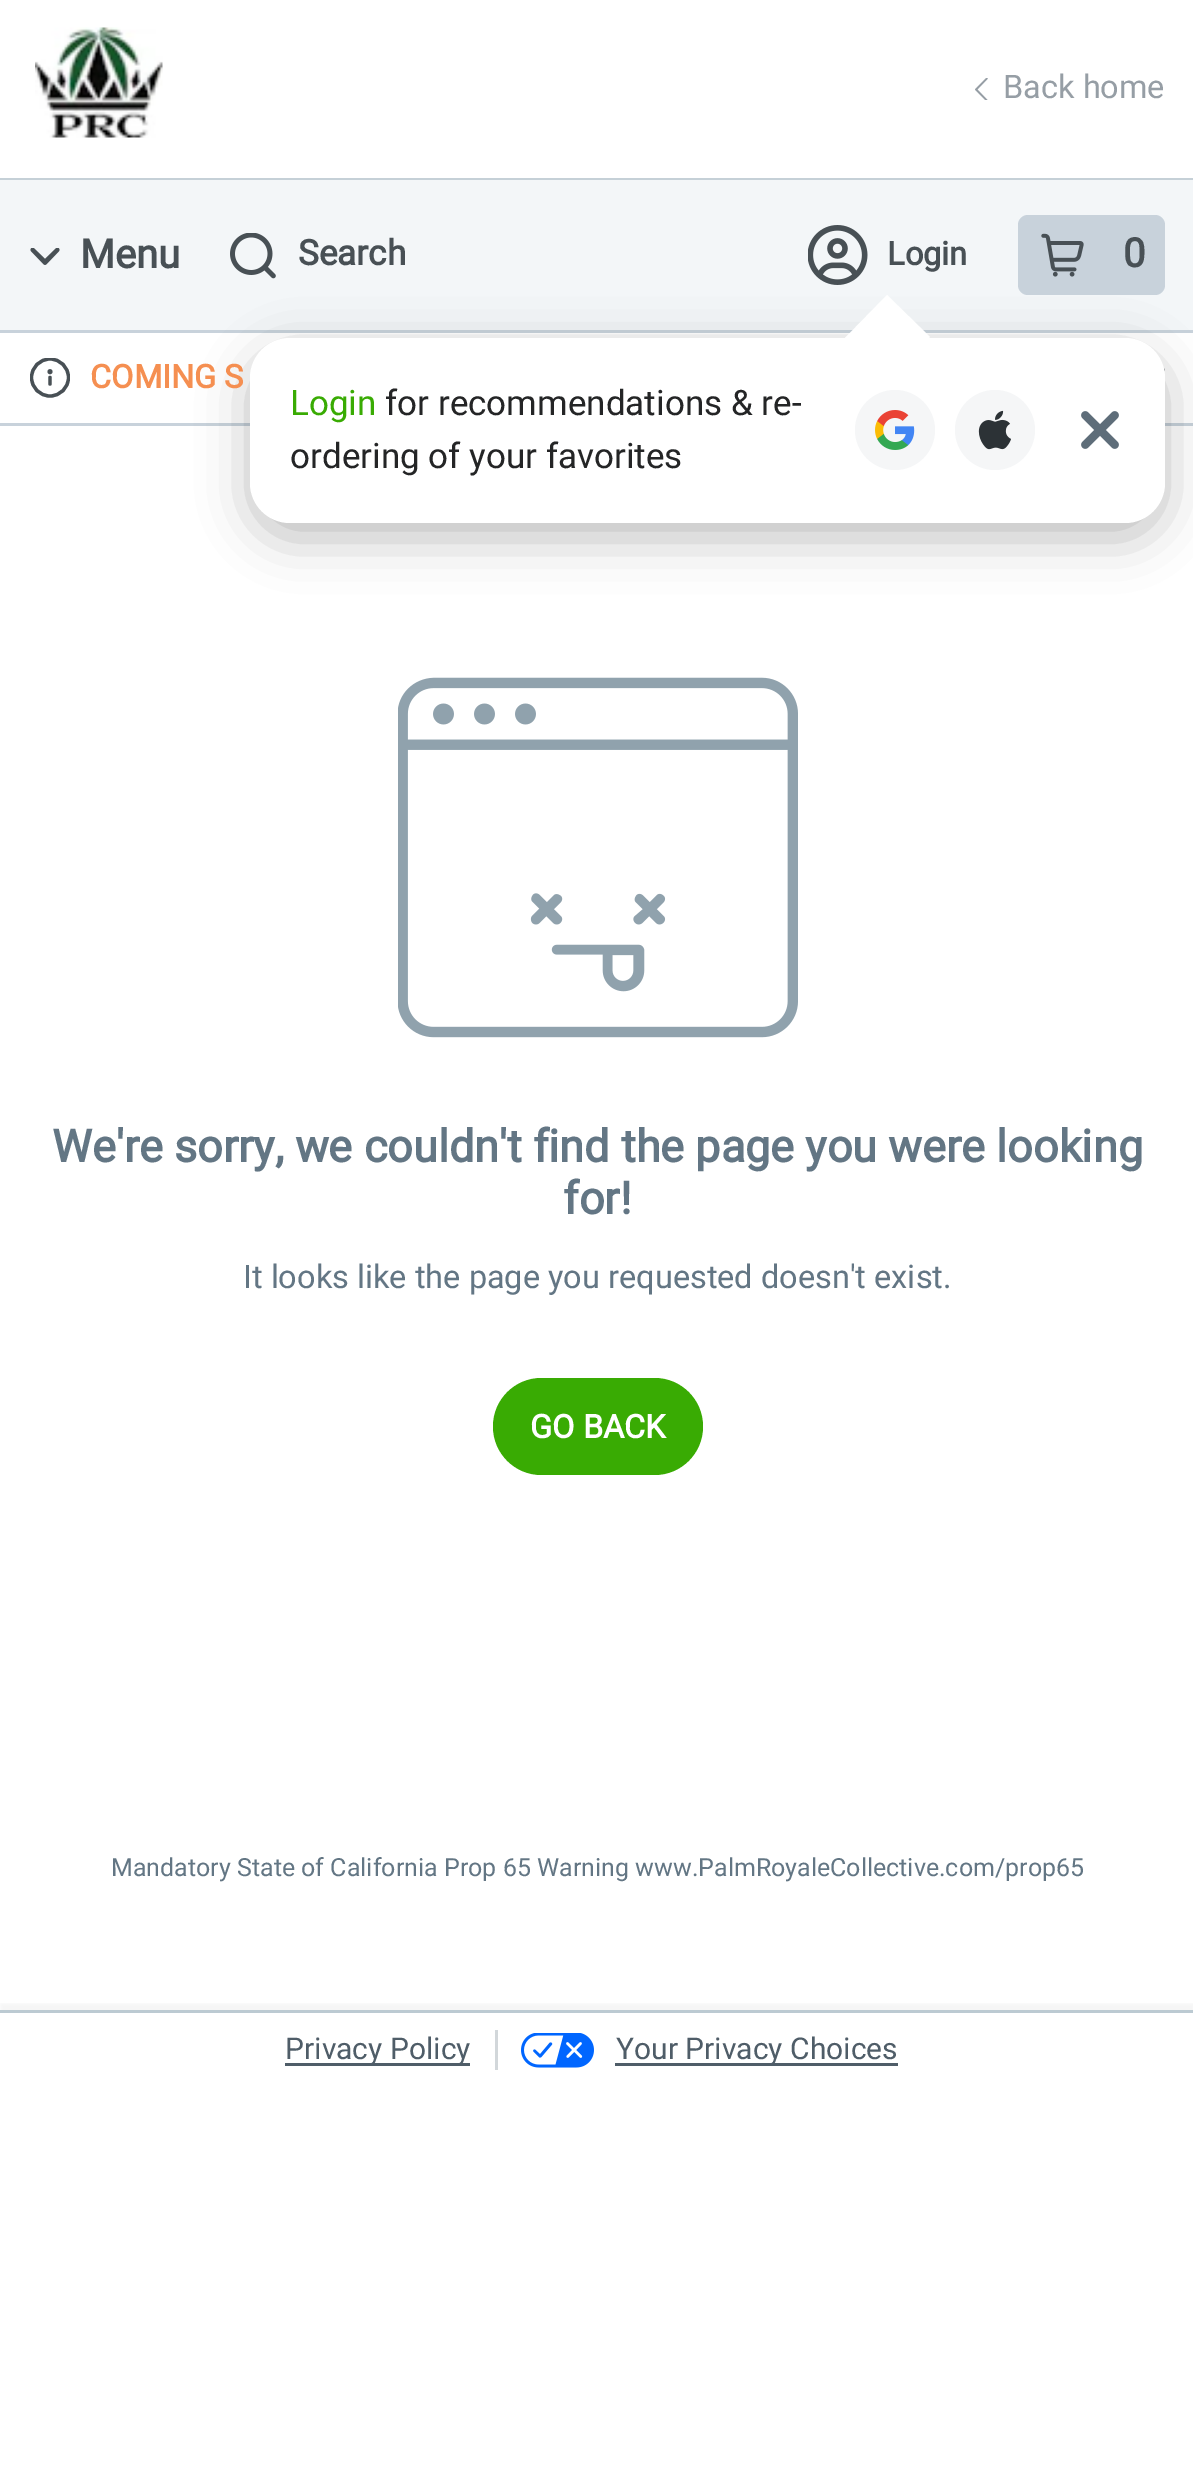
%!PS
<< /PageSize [1193 2466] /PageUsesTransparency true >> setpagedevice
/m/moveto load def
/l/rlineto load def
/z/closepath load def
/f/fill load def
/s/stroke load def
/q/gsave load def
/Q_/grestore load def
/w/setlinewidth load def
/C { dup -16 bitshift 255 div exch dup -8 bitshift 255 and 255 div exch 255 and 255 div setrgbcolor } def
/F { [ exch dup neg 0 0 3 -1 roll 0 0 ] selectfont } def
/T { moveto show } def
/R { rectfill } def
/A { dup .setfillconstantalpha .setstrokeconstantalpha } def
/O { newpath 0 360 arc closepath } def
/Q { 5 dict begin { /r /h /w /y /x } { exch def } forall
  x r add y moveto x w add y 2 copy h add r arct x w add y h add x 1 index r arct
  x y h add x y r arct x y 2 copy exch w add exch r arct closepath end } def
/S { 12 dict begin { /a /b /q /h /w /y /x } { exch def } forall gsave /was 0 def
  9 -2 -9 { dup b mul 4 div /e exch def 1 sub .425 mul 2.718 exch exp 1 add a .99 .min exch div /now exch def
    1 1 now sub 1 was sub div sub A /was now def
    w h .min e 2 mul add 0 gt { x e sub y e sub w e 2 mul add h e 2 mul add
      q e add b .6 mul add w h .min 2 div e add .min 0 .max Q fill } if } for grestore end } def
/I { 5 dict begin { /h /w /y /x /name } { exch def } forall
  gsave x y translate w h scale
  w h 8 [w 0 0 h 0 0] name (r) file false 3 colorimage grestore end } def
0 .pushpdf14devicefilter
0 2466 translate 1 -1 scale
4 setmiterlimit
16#FFFFFF C
0 0 1193 2466 R
16#C5D0D7 C
0 178 1193 2 R
(1.rgb) 35 27 128 111 I
(2.rgb) 975 78 13 22 I
/Heebo-Regular 32.5 F
16#969EA5 C
(Back home) 1003 98 T
16#F3F6F8 C
0 180 1193 150 R
16#C8D2DB C
0 330 1193 3 R
(3.rgb) 808 225 60 60 I
/Heebo-Bold 32.5 F
16#485055 C
(Login) 887 265 T
16#C8D2DB C
1018 215 147 80 10 Q f
(4.rgb) 1041 233 43 44 I
/Heebo-Bold 40 F
16#485055 C
(0) 1123 267 T
(9.rgb) 230 233 46 46 I
16#C8D2DB C
0 423 1193 3 R
(10.rgb) 1163 368 2 4 I
16#000000 C
250 353 915 185 40 25 .25 S
16#FFFFFF C
250 338 915 185 40 Q f
887 295 m 43 42 l -43 43 l -42 -42 l z f
/Heebo-Regular 35 F
16#39AB03 C
(Login) 290 415 T
16#242526 C
(for recommendations & re-) 385 415 T
(ordering of your favorites) 290 468 T
16#F5F6F7 C
895 430 40 O f
(5.rgb) 875 410 40 40 I
995 430 40 O f
(6.rgb) 978 410 33 40 I
(7.rgb) 1081 411 38 38 I
(8.rgb) 30 248 30 17 I
/Heebo-Bold 40 F
16#485055 C
(Menu) 80 268 T
/Heebo-Bold 35 F
(Search) 298 265 T
q
30 358 40 40 rectclip
3.3 w
50 377.5 18.5 O s
Q_
3.3 w
1 setlinecap
50 377.5 m 0 6.5 l s
50 371.7 2.5 O f
/Heebo-Bold 32.5 F
16#F58F51 C
(COMING S) 90 388 T
(11.rgb) 398 677 400 361 I
/Heebo-Bold 45 F
16#637684 C
(We're sorry, we couldn't find the page you were looking) 52 1162 T
(for!) 563 1214 T
/Heebo-Regular 32.5 F
(It looks like the page you requested doesn't exist.) 243 1288 T
16#39AB03 C
493 1378 210 97 48.5 Q f
/Heebo-Bold 32.5 F
16#FFFFFF C
(GO BACK) 530 1438 T
/Heebo-Regular 25 F
16#637684 C
(Mandatory State of California Prop 65 Warning www.PalmRoyaleCollective.com/prop65) 111 1876 T
q
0 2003 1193 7 rectclip
16#000000 C
0 2003 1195 75 0 2.5 .04 S
Q_
16#BCCAD2 C
0 2010 1193 3 R
16#4F5D68 C
285 2063 185 3 R
/Heebo-Regular 30 F
(Privacy Policy) 285 2059 T
16#D2D7DA C
495 2030 3 40 R
(12.rgb) 521 2033 73 35 I
16#4F5D68 C
615 2063 283 3 R
(Your Privacy Choices) 616 2059 T
.poppdf14devicefilter showpage
